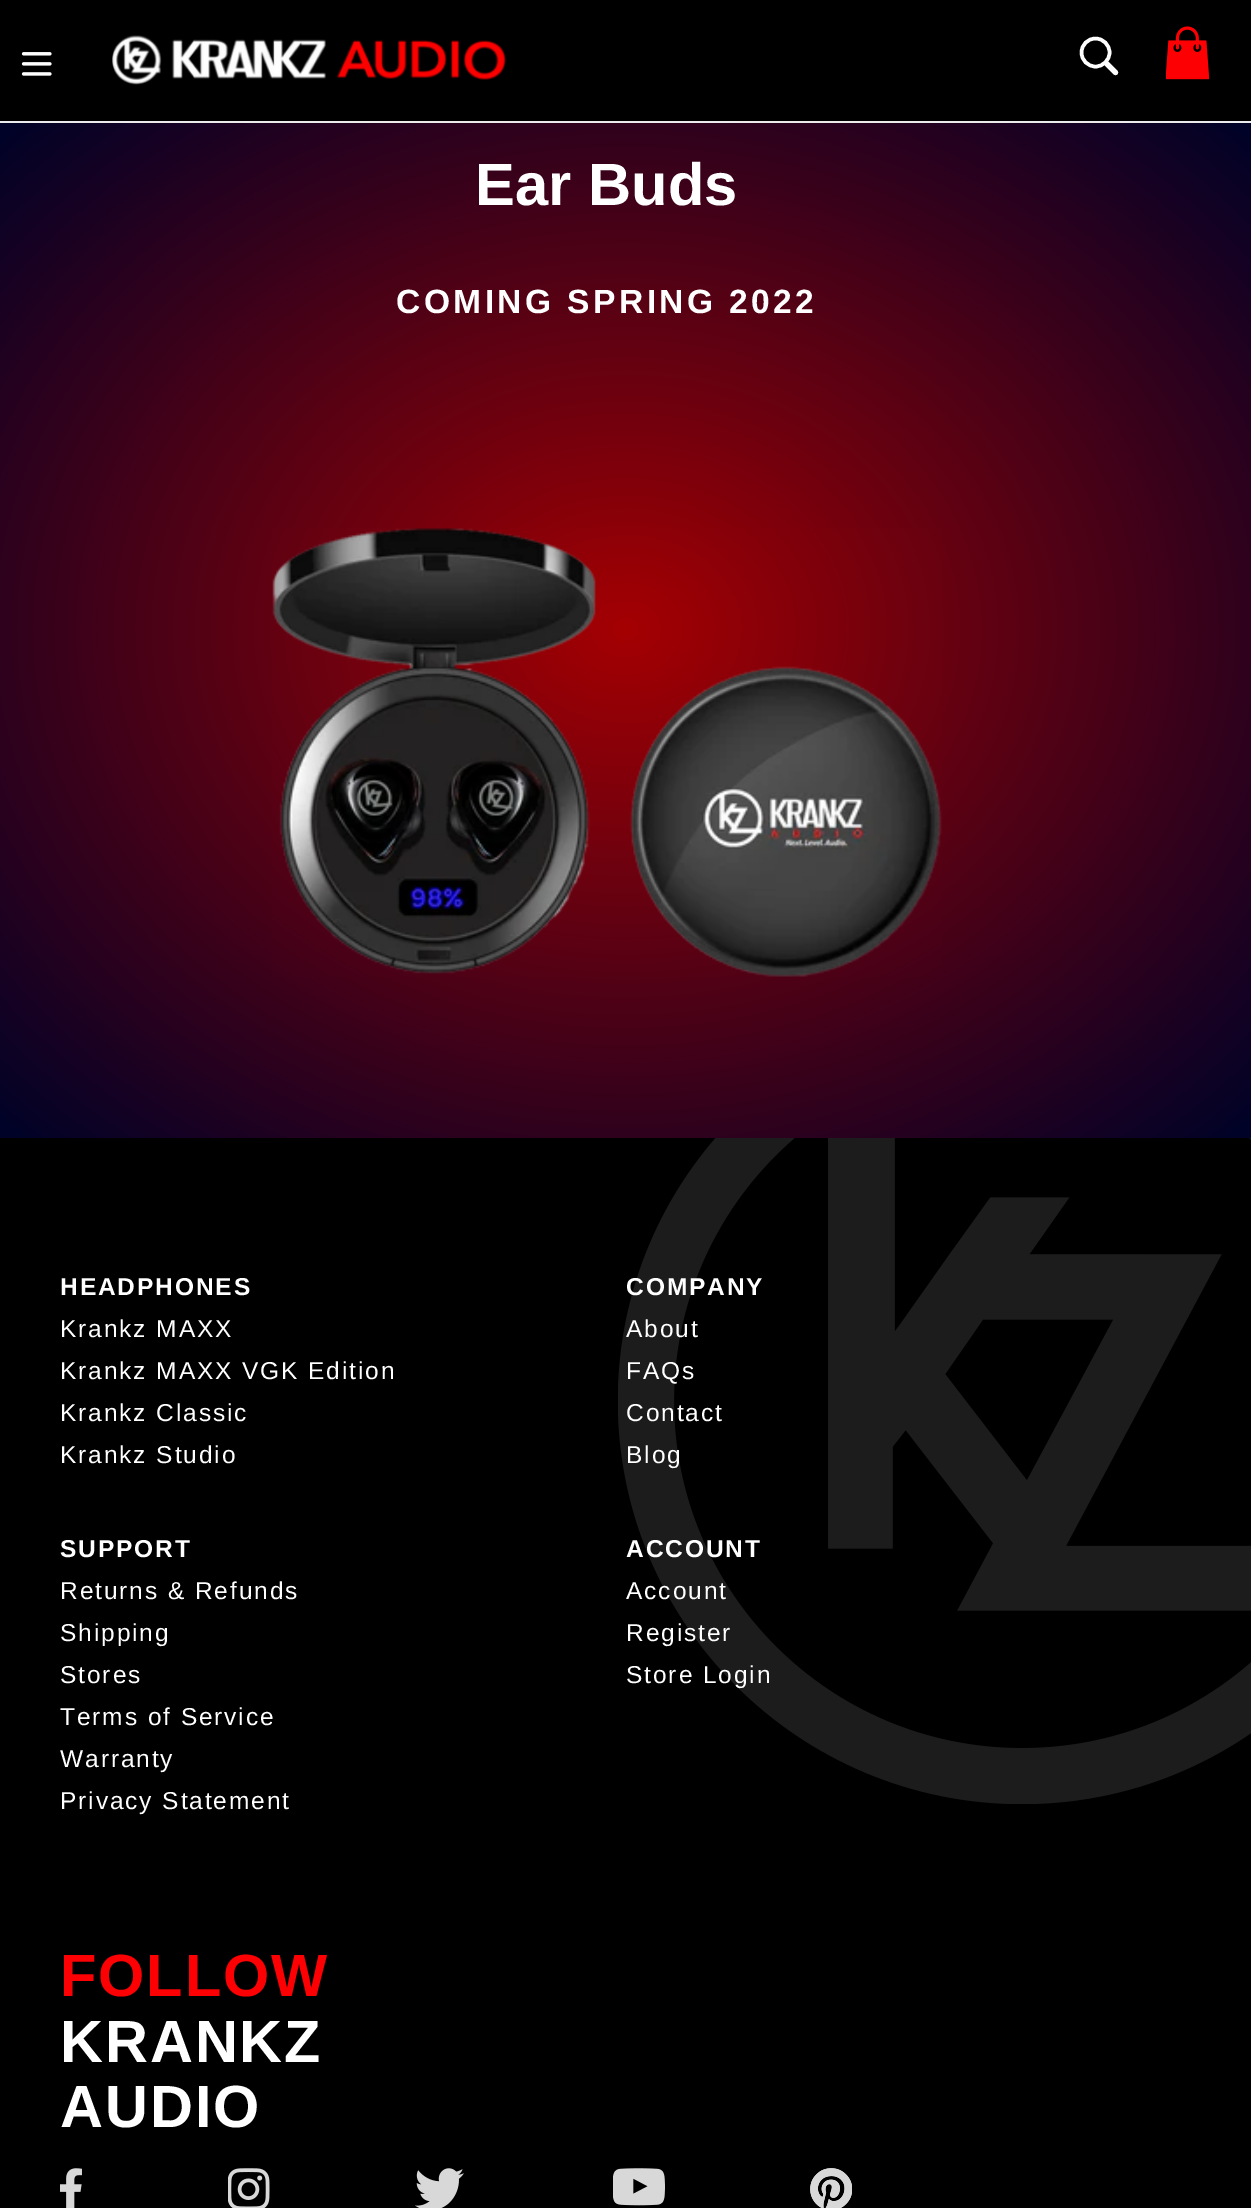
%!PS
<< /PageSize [1251 2208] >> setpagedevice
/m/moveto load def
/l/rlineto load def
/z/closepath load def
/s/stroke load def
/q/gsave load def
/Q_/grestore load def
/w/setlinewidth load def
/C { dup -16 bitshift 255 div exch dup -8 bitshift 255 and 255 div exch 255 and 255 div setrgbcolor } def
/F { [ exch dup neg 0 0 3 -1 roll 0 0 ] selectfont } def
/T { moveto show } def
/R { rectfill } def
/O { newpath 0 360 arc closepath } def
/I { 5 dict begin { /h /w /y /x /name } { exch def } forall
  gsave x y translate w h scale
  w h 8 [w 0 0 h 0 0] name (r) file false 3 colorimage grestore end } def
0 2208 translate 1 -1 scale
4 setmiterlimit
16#FFFFFF C
0 0 1251 2208 R
16#000000 C
0 0 1251 121 R
16#EBEBEB C
0 121 1251 2 R
(1.rgb) 21 52 31 24 I
(2.rgb) 112 35 394 50 I
16#FFFFFF C
3.5 w
1095.5 52.5 14 O s
5.2 w
1 setlinecap
1 setlinejoin
1107 64 m 8.5 8.5 l s
(3.rgb) 1166 26 43 54 I
q 0 123 m 1251 0 l 0 1015 l -1251 0 l z clip newpath 626 629 translate 1251 1017 scale
<< /ShadingType 3 /ColorSpace /DeviceRGB /Coords [0 0 0 0 0 1] /Extend [true true] /Function << /FunctionType 3 /Domain [0 1] /Functions [<< /FunctionType 2 /Domain [0 1] /C0 [.643 0 .008] /C1 [0 .008 .157] /N 1 >> << /FunctionType 2 /Domain [0 1] /C0 [0 .008 .157] /C1 [.02 .02 .02] /N 1 >>] /Bounds [.7] /Encode [0 1 0 1] >> >> shfill Q_
/LiberationSans-Bold 59.75 F
(Ear Buds) 475 205 T
/LiberationSans-Bold 33.6 F
396 313 m 3.4 0 (COMING SPRING 2022) ashow
(4.rgb) 272 528 670 449 I
16#000000 C
0 1138 1251 1070 R
/LiberationSans-Bold 24.5 F
16#FFFFFF C
60 1295 m 1.9 0 (HEADPHONES) ashow
/LiberationSans-Regular 24.5 F
60 1337 m 1.9 0 (Krankz MAXX) ashow
60 1379 m 1.9 0 (Krankz MAXX VGK Edition) ashow
60 1421 m 1.9 0 (Krankz Classic) ashow
60 1463 m 1.9 0 (Krankz Studio) ashow
(10.rgb) 618 1138 633 666 I
/LiberationSans-Bold 24.5 F
626 1295 m 1.9 0 (COMPANY) ashow
/LiberationSans-Regular 24.5 F
626 1337 m 1.9 0 (About) ashow
626 1379 m 1.9 0 (FAQs) ashow
626 1421 m 1.9 0 (Contact) ashow
626 1463 m 1.9 0 (Blog) ashow
/LiberationSans-Bold 24.5 F
60 1557 m 1.9 0 (SUPPORT) ashow
/LiberationSans-Regular 24.5 F
60 1599 m 1.9 0 (Returns & Refunds) ashow
60 1641 m 1.9 0 (Shipping) ashow
60 1683 m 1.9 0 (Stores) ashow
60 1725 m 1.9 0 (Terms of Service) ashow
60 1767 m 1.9 0 (Warranty) ashow
60 1809 m 1.9 0 (Privacy Statement) ashow
/LiberationSans-Bold 24.5 F
626 1557 m 1.9 0 (ACCOUNT) ashow
/LiberationSans-Regular 24.5 F
626 1599 m 1.9 0 (Account) ashow
626 1641 m 1.9 0 (Register) ashow
626 1683 m 1.9 0 (Store Login) ashow
/LiberationSans-Bold 59.5 F
16#FC0003 C
60 1996 m 1.9 0 (FOLLOW) ashow
16#FFFFFF C
60 2062 m 1.9 0 (KRANKZ) ashow
60 2127 m 1.9 0 (AUDIO) ashow
(5.rgb) 60 2168 22 40 I
(6.rgb) 228 2168 42 40 I
(7.rgb) 415 2168 49 40 I
(8.rgb) 613 2168 52 38 I
(9.rgb) 810 2168 42 40 I
showpage
